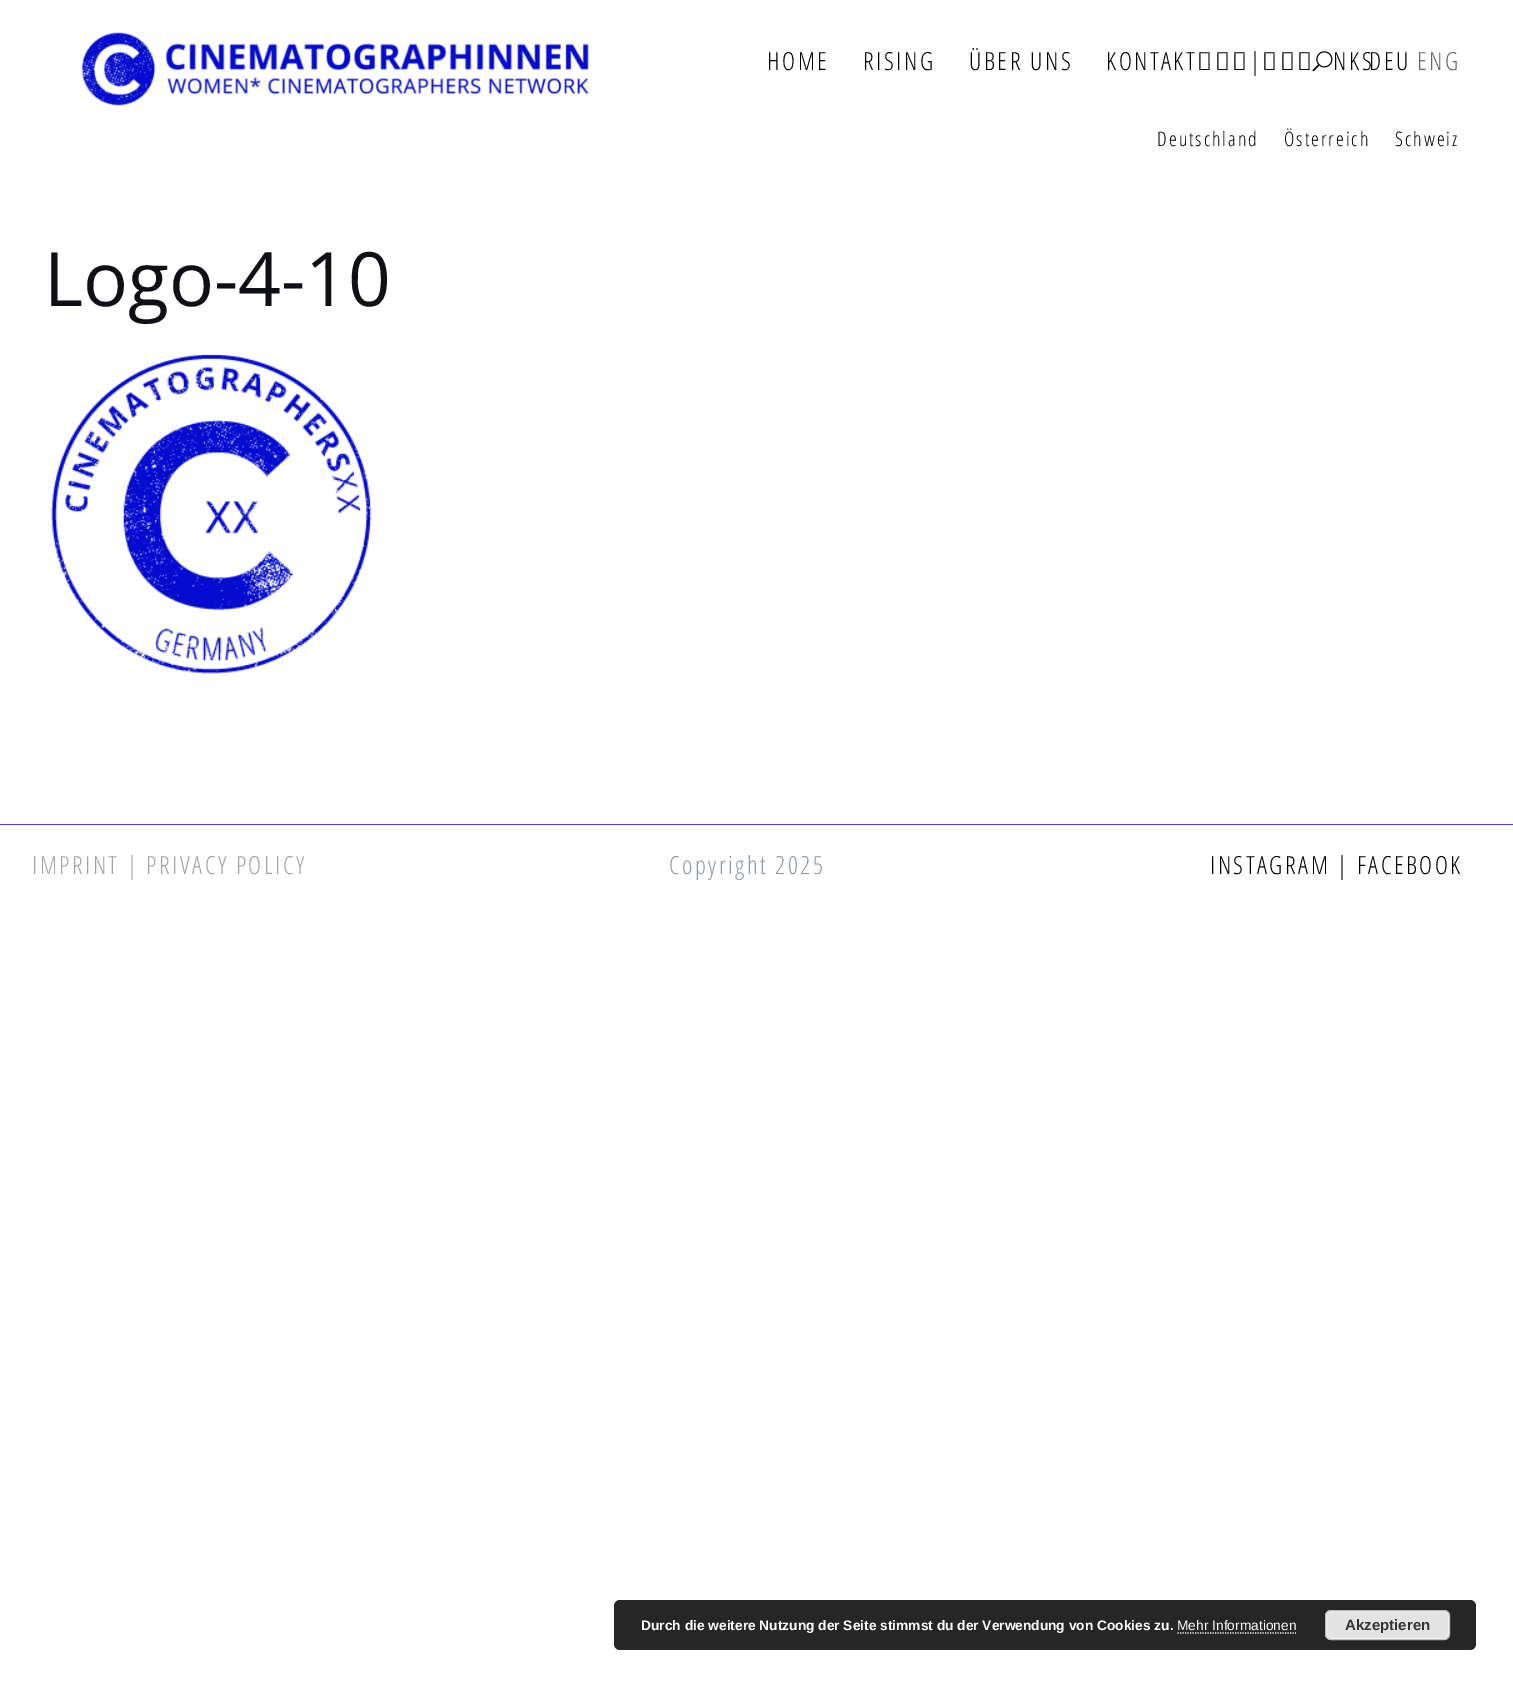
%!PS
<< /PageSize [1513 1687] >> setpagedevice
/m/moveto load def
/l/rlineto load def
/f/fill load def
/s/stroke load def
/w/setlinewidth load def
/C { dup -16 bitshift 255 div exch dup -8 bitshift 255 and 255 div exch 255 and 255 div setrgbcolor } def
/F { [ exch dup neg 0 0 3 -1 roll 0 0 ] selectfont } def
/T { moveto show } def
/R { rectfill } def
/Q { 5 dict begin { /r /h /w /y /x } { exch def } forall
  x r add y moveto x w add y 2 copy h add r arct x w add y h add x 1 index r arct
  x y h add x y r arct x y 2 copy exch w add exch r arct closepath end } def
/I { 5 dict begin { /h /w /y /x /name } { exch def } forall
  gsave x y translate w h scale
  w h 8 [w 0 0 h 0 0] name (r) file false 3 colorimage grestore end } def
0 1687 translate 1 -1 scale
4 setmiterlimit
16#FFFFFF C
0 0 1513 1687 R
(1.rgb) 81 32 508 74 I
/OpenSansCondensed-Light 25 F
16#000000 C
767 70 m 2.5 0 (HOME) ashow
863 70 m 2.5 0 (RISING) ashow
969 70 m 2.5 0 (ÜBER UNS) ashow
1106 70 m 2.5 0 (KONTAKT | LINKS) ashow
(2.rgb) 1312 51 21 21 I
1369 70 m 2.5 0 (DEU) ashow
16#666666 C
1417 70 m 2.5 0 (ENG) ashow
/OpenSansCondensed-Light 20 F
16#000000 C
1157 146 m 2 0 (Deutschland) ashow
1284 146 m 2 0 (Österreich) ashow
1395 146 m 2 0 (Schweiz) ashow
/OpenSans-Regular 75 F
16#0E1015 C
(Logo-4-10) 44 306 T
(3.rgb) 51 354 321 320 I
16#5234F9 C
0 824 1513 1 R
/OpenSansCondensed-Light 25 F
16#A2A2A2 C
32 874 m 2.5 0 (IMPRINT | PRIVACY POLICY) ashow
16#8C979E C
669 874 m 2.5 0 (Copyright 2025) ashow
16#000000 C
1210 874 m 2.5 0 (INSTAGRAM | FACEBOOK) ashow
16#262626 C
614 1600 862 50 6 Q f
/LiberationSans-Bold 13.75 F
16#FFFFFF C
(Durch die weitere Nutzung der Seite stimmst du der Verwendung von Cookies zu.) 641 1630 T
/LiberationSans-Regular 13.75 F
(Mehr Informationen) 1177 1630 T
1.2 w
[1.25 1.25] 0 setdash
1177.5 1633 m 118.5 0 l s
16#E3E3E3 C
1325 1610 125 30 6 Q f
16#F6F6F6 C
1 w
[] 0 setdash
1326.5 1611.5 122 27 4.5 Q s
16#BBBBBB C
1325.5 1610.5 124 29 5.5 Q s
/LiberationSans-Bold 15 F
16#333333 C
(Akzeptieren) 1345 1630 T
showpage
